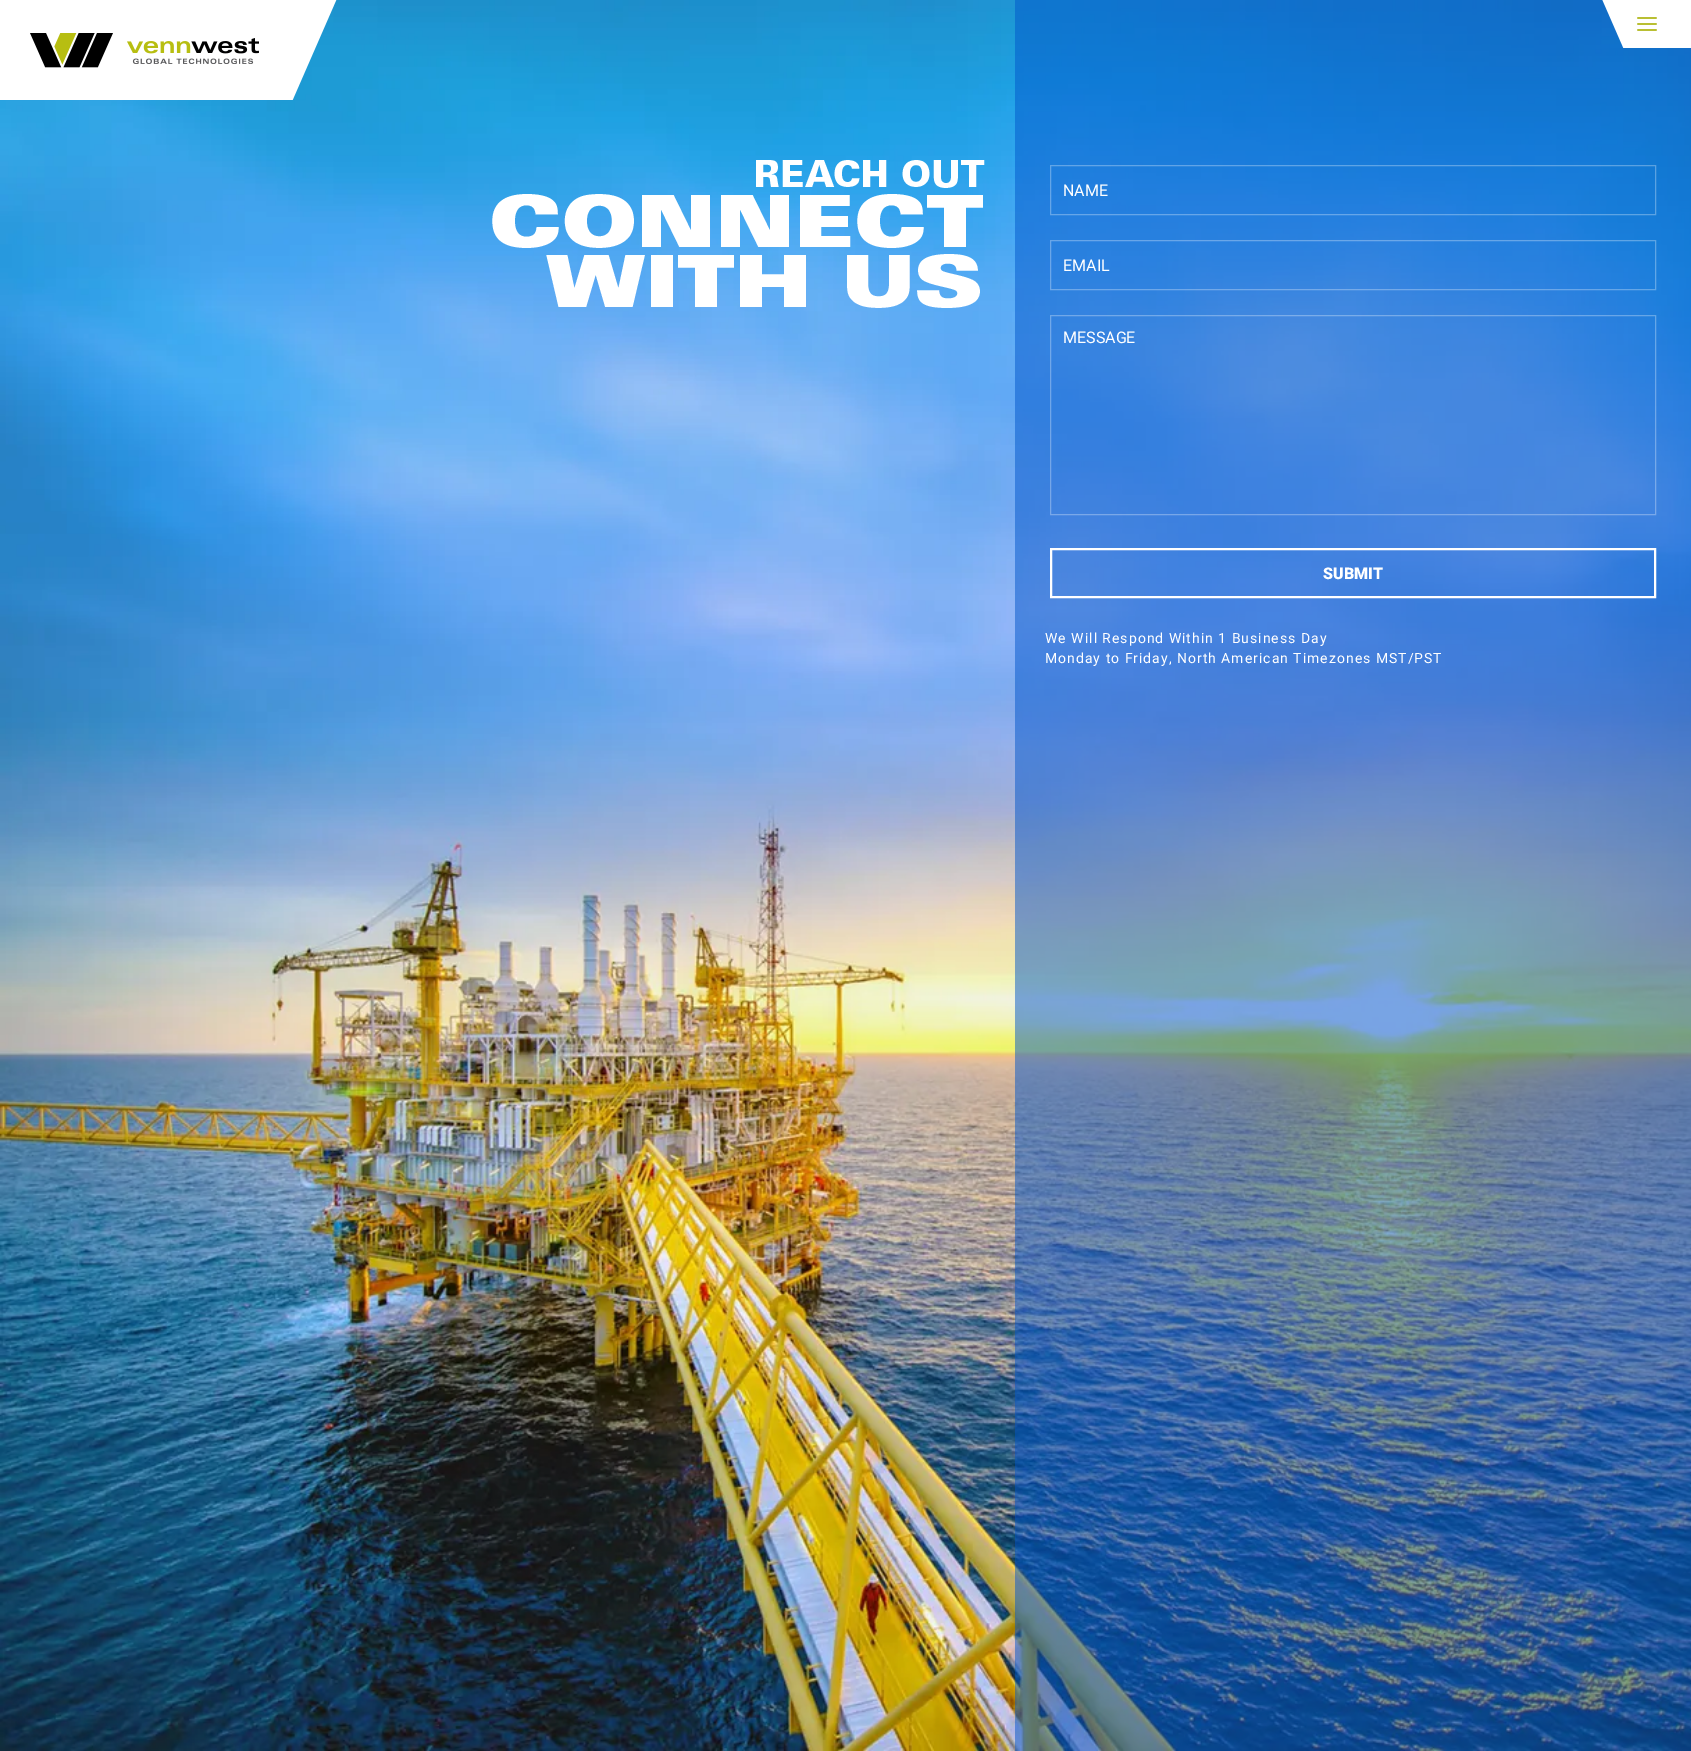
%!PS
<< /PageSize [1691 1751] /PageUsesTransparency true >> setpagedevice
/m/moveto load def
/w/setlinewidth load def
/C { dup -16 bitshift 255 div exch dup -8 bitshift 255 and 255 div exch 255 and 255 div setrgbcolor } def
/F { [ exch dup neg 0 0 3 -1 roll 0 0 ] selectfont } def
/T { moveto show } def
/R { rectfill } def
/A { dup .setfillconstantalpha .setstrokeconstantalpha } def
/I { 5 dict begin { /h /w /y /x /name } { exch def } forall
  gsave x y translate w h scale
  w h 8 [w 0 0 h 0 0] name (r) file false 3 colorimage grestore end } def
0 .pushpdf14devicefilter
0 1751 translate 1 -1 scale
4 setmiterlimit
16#FFFFFF C
0 0 1691 1751 R
(4.rgb) 0 0 1691 1751 I
0.5 A
16#0155CA C
1015 0 676 1751 R
1 A
(2.rgb) 1602 0 89 48 I
(1.rgb) 1637 17 20 14 I
(3.rgb) 0 0 337 100 I
(5.rgb) 492 160 493 148 I
0.3 A
16#FFFFFF C
1050.5 165.5 605 49 rectstroke
/Roboto-Regular 16 F
1 A
(NAME) 1063 196 T
0.3 A
1050.5 240.5 605 49 rectstroke
1 A
(EMAIL) 1063 271 T
0.3 A
1050.5 315.5 605 199 rectstroke
1 A
(MESSAGE) 1063 343 T
2 w
1051 549 604 48 rectstroke
/Roboto-Black 16 F
(SUBMIT) 1323 579 T
/Roboto-Regular 14 F
1045 643 m 1 0 (We Will Respond Within 1 Business Day) ashow
1045 663 m 1 0 (Monday to Friday, North American Timezones MST/PST) ashow
.poppdf14devicefilter showpage
